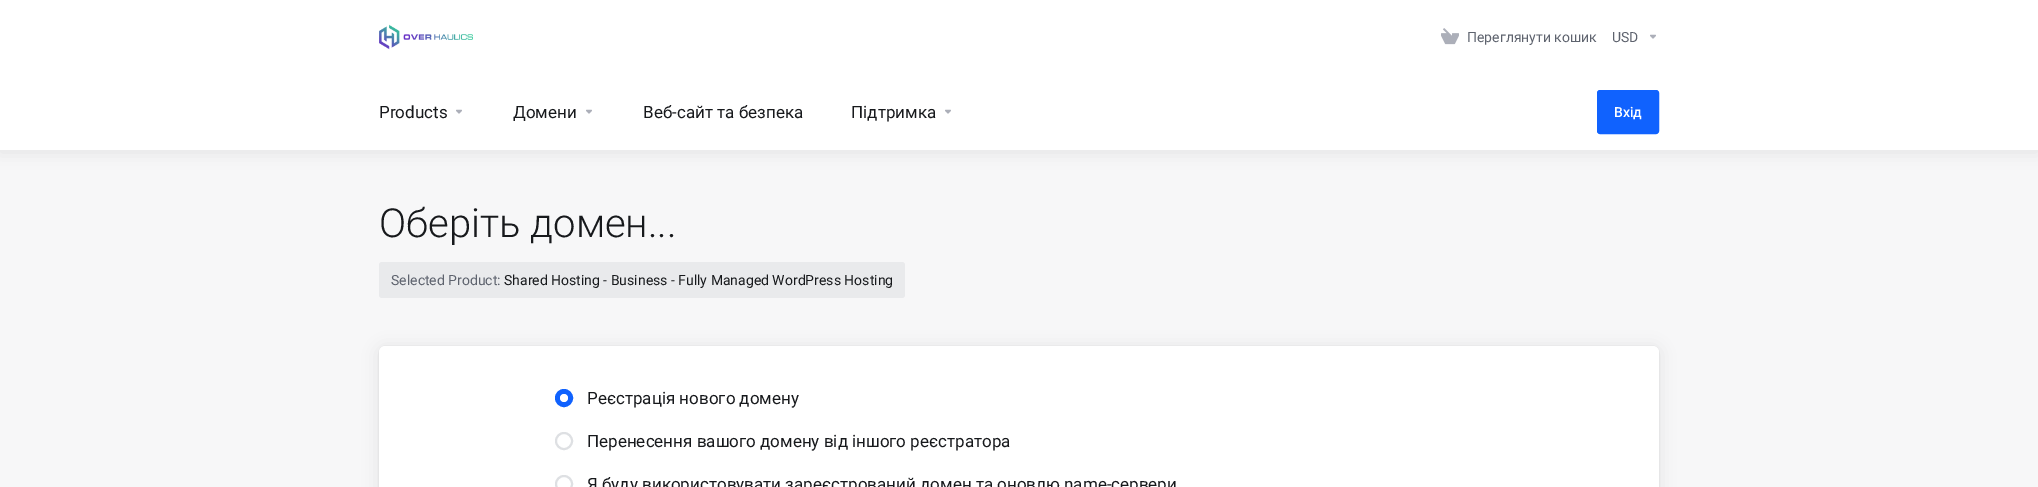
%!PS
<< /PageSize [2038 487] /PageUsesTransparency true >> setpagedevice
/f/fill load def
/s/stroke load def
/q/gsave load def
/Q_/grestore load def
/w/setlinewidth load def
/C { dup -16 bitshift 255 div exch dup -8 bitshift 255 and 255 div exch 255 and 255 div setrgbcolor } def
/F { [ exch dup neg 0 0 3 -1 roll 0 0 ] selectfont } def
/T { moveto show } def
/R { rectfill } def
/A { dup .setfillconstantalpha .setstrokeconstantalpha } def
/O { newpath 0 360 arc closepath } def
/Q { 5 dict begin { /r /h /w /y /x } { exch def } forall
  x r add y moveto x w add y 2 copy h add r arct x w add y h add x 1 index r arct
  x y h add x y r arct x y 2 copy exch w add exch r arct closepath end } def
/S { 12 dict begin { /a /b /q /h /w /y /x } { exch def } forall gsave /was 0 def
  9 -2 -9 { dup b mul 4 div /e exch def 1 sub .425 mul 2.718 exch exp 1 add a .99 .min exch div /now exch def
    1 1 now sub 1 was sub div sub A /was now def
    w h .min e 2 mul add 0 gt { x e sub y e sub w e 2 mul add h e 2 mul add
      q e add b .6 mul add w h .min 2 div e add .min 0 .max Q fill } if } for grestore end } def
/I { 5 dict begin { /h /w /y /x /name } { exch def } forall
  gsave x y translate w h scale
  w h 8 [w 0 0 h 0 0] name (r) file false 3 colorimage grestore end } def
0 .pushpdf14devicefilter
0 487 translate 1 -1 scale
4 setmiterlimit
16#F7F7F8 C
0 0 2038 487 R
16#000000 C
0 2 2038 150 0 8 .08 S
16#FFFFFF C
0 0 2038 150 R
(1.rgb) 379 24 94 26 I
(2.rgb) 1441 28 18 17 I
/Roboto-Regular 14 F
16#5E636E C
(Переглянути кошик) 1467 42 T
(USD) 1612 42 T
(3.rgb) 1650 34 6 5 I
/Roboto-Regular 17 F
16#17191C C
(Products) 379 118 T
(3.rgb) 456 109 6 5 I
(Домени) 513 118 T
(3.rgb) 586 109 6 5 I
(Веб-сайт та безпека) 643 118 T
(Підтримка) 851 118 T
(3.rgb) 945 109 6 5 I
16#1062FE C
1597.5 90.5 61 43 2.5 Q q f Q_
s
/Roboto-Medium 14 F
16#FFFFFF C
(Вхід) 1614 117 T
/Roboto-Light 40 F
16#17191C C
(Оберіть домен...) 379 237 T
16#E9EAEC C
379 262 526 36 3 Q f
/Roboto-Regular 14 F
16#5E636E C
(Selected Product:) 391 285 T
16#17191C C
(Shared Hosting - Business - Fully Managed WordPress Hosting) 504 285 T
16#000000 C
379 348 1280 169 6 8 .08 S
379 346 1280 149 6 .5 .1 S
16#FFFFFF C
379 346 1280 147 6 Q f
16#1062FE C
564 398 8 O q f Q_
2 w
s
16#FFFFFF C
564 398 4 O f
/Roboto-Regular 17 F
16#17191C C
(Реєстрація нового домену) 587 404 T
16#DEE0E3 C
564 441 8 O s
16#17191C C
(Перенесення вашого домену від іншого реєстратора) 587 447 T
16#DEE0E3 C
564 484 8 O s
16#17191C C
(Я буду використовувати зареєстрований домен та оновлю name-сервери) 587 490 T
.poppdf14devicefilter showpage
